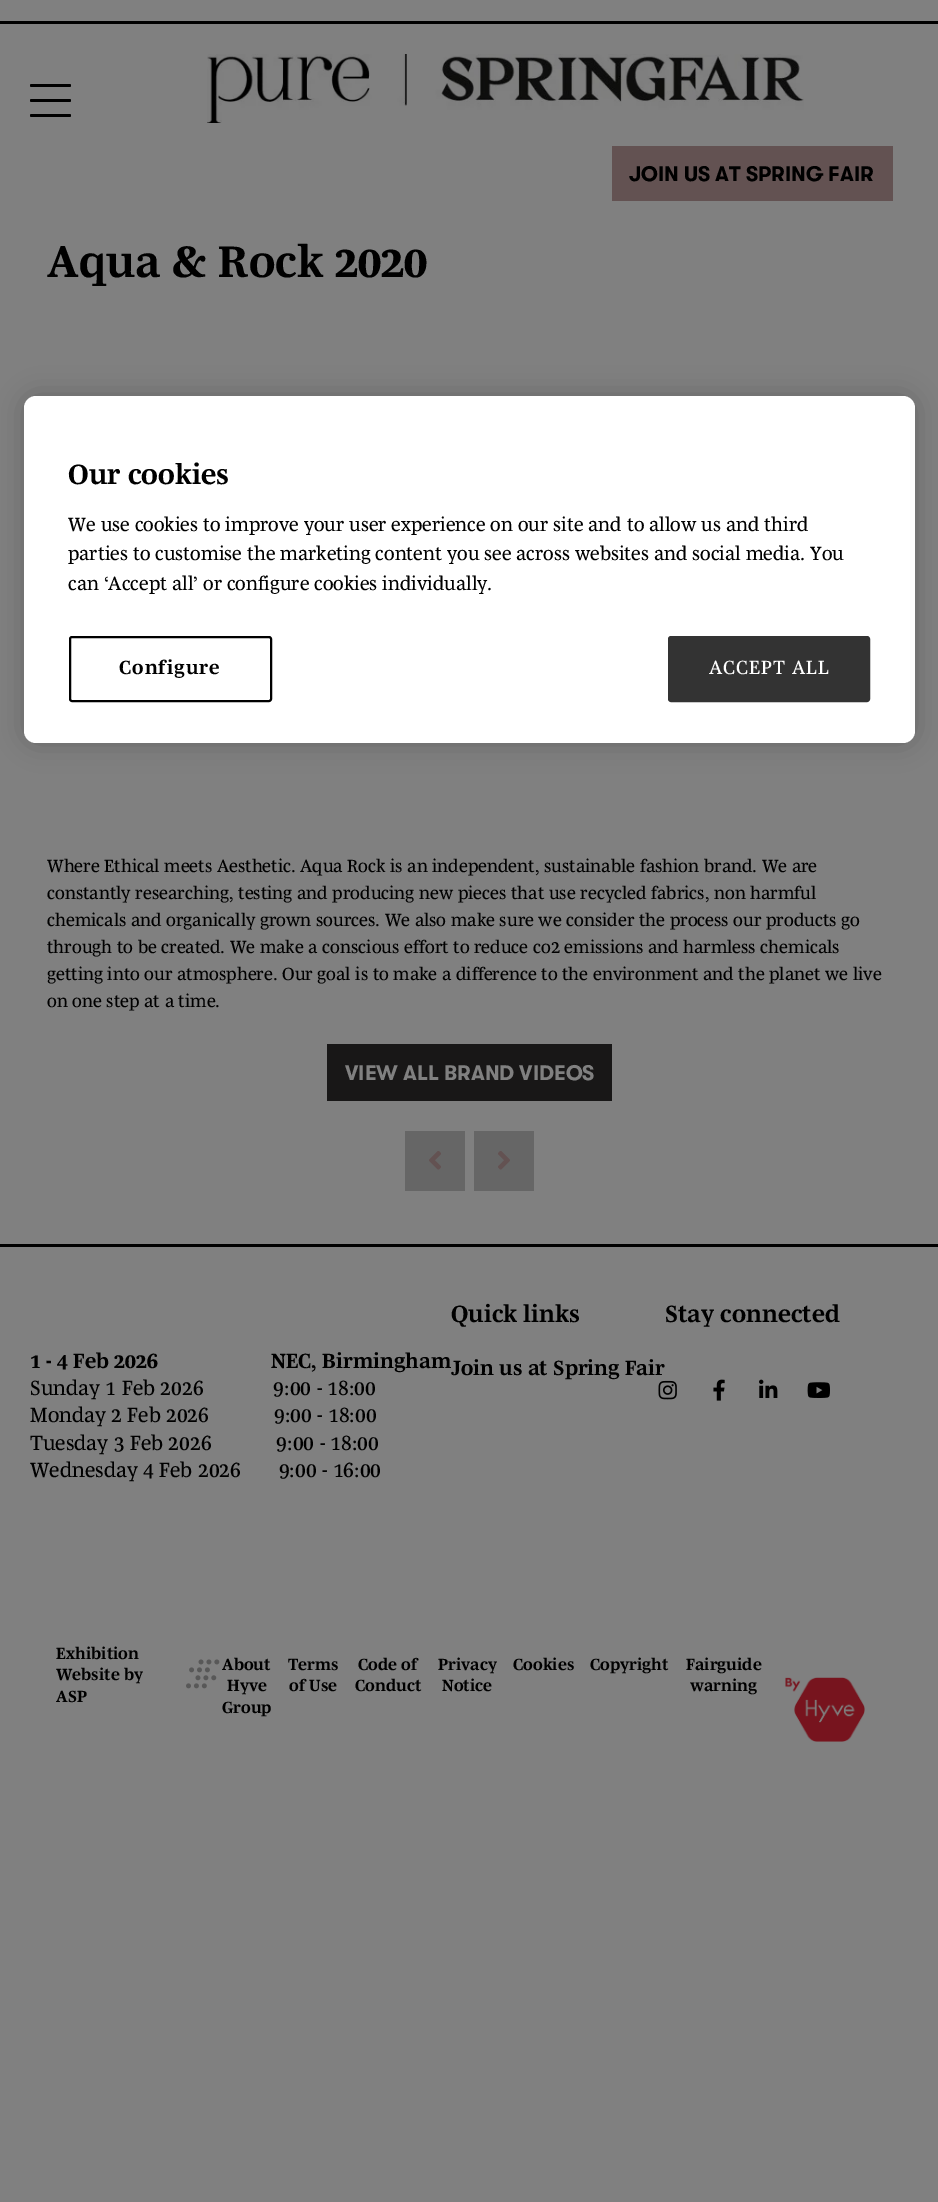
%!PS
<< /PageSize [938 2202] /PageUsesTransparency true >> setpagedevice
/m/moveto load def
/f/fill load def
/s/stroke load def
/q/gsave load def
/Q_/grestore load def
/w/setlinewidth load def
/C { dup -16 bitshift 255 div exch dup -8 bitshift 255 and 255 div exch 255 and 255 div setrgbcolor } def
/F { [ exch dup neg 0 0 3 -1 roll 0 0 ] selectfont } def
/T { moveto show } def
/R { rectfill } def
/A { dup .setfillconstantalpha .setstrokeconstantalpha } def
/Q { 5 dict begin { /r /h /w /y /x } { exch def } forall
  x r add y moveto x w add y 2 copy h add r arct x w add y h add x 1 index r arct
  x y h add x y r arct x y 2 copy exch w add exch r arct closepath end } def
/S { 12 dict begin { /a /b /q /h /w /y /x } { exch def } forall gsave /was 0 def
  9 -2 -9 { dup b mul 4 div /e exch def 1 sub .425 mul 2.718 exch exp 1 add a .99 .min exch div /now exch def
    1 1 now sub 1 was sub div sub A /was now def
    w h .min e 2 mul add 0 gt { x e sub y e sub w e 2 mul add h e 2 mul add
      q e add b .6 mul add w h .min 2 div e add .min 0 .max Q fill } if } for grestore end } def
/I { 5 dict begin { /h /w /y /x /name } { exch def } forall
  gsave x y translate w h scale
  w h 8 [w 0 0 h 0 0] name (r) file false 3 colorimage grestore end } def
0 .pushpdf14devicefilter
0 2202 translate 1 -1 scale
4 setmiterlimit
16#808080 C
0 0 938 2202 R
16#000000 C
0 21 938 3 R
30 99 41 3 1.5 Q f
30 84 41 3 1.5 Q f
30 114 41 3 1.5 Q f
(1.rgb) 207 54 597 69 I
16#635252 C
612 146 281 55 R
/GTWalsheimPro-Bold 21 F
16#000000 C
(JOIN US AT SPRING FAIR) 629 181 T
/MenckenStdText-Bold 45 F
(Aqua & Rock 2020) 47 277 T
/MenckenStdText-Regular 18 F
(Where Ethical meets Aesthetic. Aqua Rock is an independent, sustainable fashion brand. We are) 47 872 T
(constantly researching, testing and producing new pieces that use recycled fabrics, non harmful) 47 899 T
(chemicals and organically grown sources. We also make sure we consider the process our products go) 47 926 T
(through to be created. We make a conscious effort to reduce co2 emissions and harmless chemicals) 47 953 T
(getting into our atmosphere. Our goal is to make a difference to the environment and the planet we live) 47 980 T
(on one step at a time.) 47 1007 T
16#181717 C
327 1044 285 57 R
/GTWalsheimPro-Bold 21 F
16#808080 C
(VIEW ALL BRAND VIDEOS) 345 1080 T
16#666666 C
405 1131 60 60 R
(2.rgb) 429 1151 12 19 I
474 1131 60 60 R
(3.rgb) 498 1151 12 19 I
16#000000 C
0 1244 938 3 R
/MenckenStdText-Bold 24 F
(Quick links) 451 1322 T
/MenckenStdText-Bold 21 F
(Join us at Spring Fair) 451 1375 T
/MenckenStdText-Bold 24 F
(Stay connected) 665 1322 T
(4.rgb) 658 1380 19 20 I
(5.rgb) 713 1379 12 22 I
(6.rgb) 759 1379 19 19 I
(7.rgb) 807 1382 23 16 I
/MenckenStdText-Bold 21 F
(1 - 4 Feb 2026                     NEC, Birmingham) 30 1368 T
/MenckenStdText-Regular 21 F
(Sunday 1 Feb 2026             9:00 - 18:00) 30 1395 T
(Monday 2 Feb 2026            9:00 - 18:00) 30 1422 T
(Tuesday 3 Feb 2026            9:00 - 18:00) 30 1450 T
(Wednesday 4 Feb 2026       9:00 - 16:00) 30 1477 T
/MenckenStdText-Bold 16.5 F
(Exhibition) 56 1659 T
(Website by) 56 1680 T
(8.rgb) 186 1659 34 30 I
(ASP) 56 1702 T
(About) 222 1670 T
(Hyve) 227 1691 T
(Group) 222 1713 T
(Terms) 288 1670 T
(of Use) 289 1691 T
(Code of) 358 1670 T
(Conduct) 355 1691 T
(Privacy) 438 1670 T
(Notice) 442 1691 T
(Cookies) 513 1670 T
(Copyright) 590 1670 T
(Fairguide) 686 1670 T
(warning) 690 1691 T
(9.rgb) 785 1677 80 65 I
24 396 891 347 12 13.5 .2 S
16#FFFFFF C
24 396 891 347 12 Q f
/MenckenStdText-Bold 28.5 F
16#000000 C
(Our cookies) 68 484 T
/MenckenStdText-Regular 19.5 F
(We use cookies to improve your user experience on our site and to allow us and third) 68 531 T
(parties to customise the marketing content you see across websites and social media. You) 68 560 T
(can ‘Accept all’ or configure cookies individually.) 68 590 T
2 w
70 637 201 64 2 Q s
/MenckenStdText-Bold 19.5 F
119 674 m 1 0 (Configure) ashow
16#333333 C
669 637 200 64 2 Q q f Q_
s
/MenckenStdText-Regular 19.5 F
16#FFFFFF C
709 674 m 1 0 (ACCEPT ALL) ashow
.poppdf14devicefilter showpage
